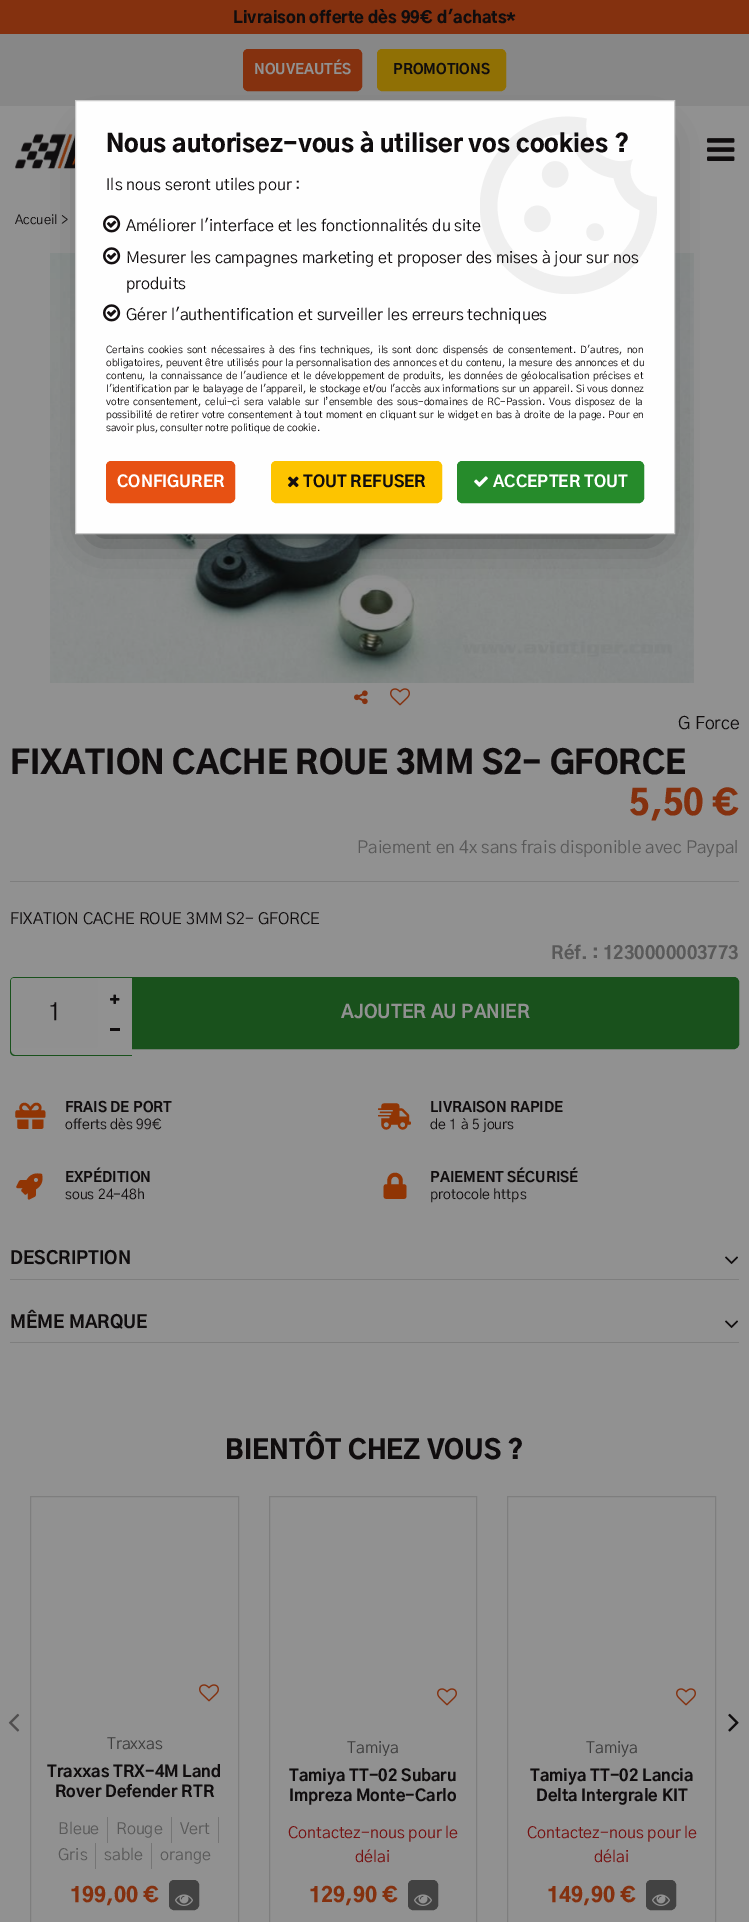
%!PS
<< /PageSize [749 1922] /PageUsesTransparency true >> setpagedevice
/m/moveto load def
/l/rlineto load def
/c/rcurveto load def
/z/closepath load def
/f/fill load def
/s/stroke load def
/q/gsave load def
/Q_/grestore load def
/C { dup -16 bitshift 255 div exch dup -8 bitshift 255 and 255 div exch 255 and 255 div setrgbcolor } def
/F { [ exch dup neg 0 0 3 -1 roll 0 0 ] selectfont } def
/T { moveto show } def
/R { rectfill } def
/A { dup .setfillconstantalpha .setstrokeconstantalpha } def
/Q { 5 dict begin { /r /h /w /y /x } { exch def } forall
  x r add y moveto x w add y 2 copy h add r arct x w add y h add x 1 index r arct
  x y h add x y r arct x y 2 copy exch w add exch r arct closepath end } def
/S { 12 dict begin { /a /b /q /h /w /y /x } { exch def } forall gsave /was 0 def
  9 -2 -9 { dup b mul 4 div /e exch def 1 sub .425 mul 2.718 exch exp 1 add a .99 .min exch div /now exch def
    1 1 now sub 1 was sub div sub A /was now def
    w h .min e 2 mul add 0 gt { x e sub y e sub w e 2 mul add h e 2 mul add
      q e add b .6 mul add w h .min 2 div e add .min 0 .max Q fill } if } for grestore end } def
/I { 5 dict begin { /h /w /y /x /name } { exch def } forall
  gsave x y translate w h scale
  w h 8 [w 0 0 h 0 0] name (r) file false 3 colorimage grestore end } def
0 .pushpdf14devicefilter
0 1922 translate 1 -1 scale
4 setmiterlimit
16#919191 C
0 0 749 1922 R
16#84310F C
0 0 749 34 R
/GothicA1-Black 16 F
16#100D0E C
(Livraison offerte dès 99€ d'achats*) 233 23 T
16#878787 C
0 34 749 72 R
16#84310F C
243.5 49.5 118 41 4.5 Q q f Q_
s
/GothicA1-ExtraBold 14 F
16#919191 C
(NOUVEAUTÉS) 254 74 T
16#907005 C
377.5 49.5 128 41 4.5 Q q f Q_
s
16#100D0E C
(PROMOTIONS) 393 74 T
(1.rgb) 15 133 60 36 I
(2.rgb) 707 138 28 23 I
/GothicA1-Regular 13 F
(Accueil >) 15 224 T
(3.rgb) 50 253 644 430 I
(4.rgb) 354 690 14 15 I
(5.rgb) 390 688 20 18 I
/GothicA1-Regular 17.6 F
(G Force) 678 729 T
/GothicA1-Black 32 F
(FIXATION CACHE ROUE 3MM S2- GFORCE) 10 774 T
16#7E7E7E C
10 881 729 1 R
/GothicA1-Black 34 F
16#84310F C
(5,50 €) 629 815 T
/GothicA1-Regular 17.25 F
16#595959 C
(Paiement en 4x sans frais disponible avec Paypal) 357 853 T
/GothicA1-Regular 16 F
16#100D0E C
(FIXATION CACHE ROUE 3MM S2- GFORCE) 10 924 T
/GothicA1-ExtraBold 17.6 F
16#595959 C
(Réf. : 1230000003773) 551 959 T
16#19511C C
15 977 m 117 0 l 0 79 l -117 0 l -3 0 -5 -2 -5 -5 c 0 -69 l 0 -3 2 -5 5 -5 c z 15 978 m 117 0 l 0 77 l -117 0 l -2 0 -4 -2 -4 -4 c 0 -69 l 0 -2 2 -4 4 -4 c z eofill
16#909090 C
11 978 87 70 3 Q f
/GothicA1-Regular 24 F
16#100D0E C
(1) 48 1020 T
(6.rgb) 110 994 10 10 I
110 1028 10 3 R
16#19511C C
132.5 977.5 m 601.5 0 l 2.5 0 4.5 2 4.5 4.5 c 0 62 l 0 2.5 -2 4.5 -4.5 4.5 c -601.5 0 l z q f Q_
s
/GothicA1-ExtraBold 18 F
16#919191 C
(AJOUTER AU PANIER) 341 1018 T
(7.rgb) 15 1102 31 27 I
/GothicA1-ExtraBold 14 F
16#100D0E C
(FRAIS DE PORT) 65 1112 T
/GothicA1-Regular 14 F
(offerts dès 99€) 65 1129 T
(8.rgb) 16 1173 27 27 I
/GothicA1-ExtraBold 14 F
(EXPÉDITION) 65 1182 T
/GothicA1-Regular 14 F
(sous 24-48h) 65 1199 T
(9.rgb) 378 1103 33 27 I
/GothicA1-ExtraBold 14 F
(LIVRAISON RAPIDE) 430 1112 T
/GothicA1-Regular 14 F
(de 1 à 5 jours) 430 1129 T
(10.rgb) 383 1172 24 27 I
/GothicA1-ExtraBold 14 F
(PAIEMENT SÉCURISÉ) 430 1182 T
/GothicA1-Regular 14 F
(protocole https) 430 1199 T
16#7E7E7E C
10 1279 729 1 R
/GothicA1-ExtraBold 17.6 F
16#100D0E C
(DESCRIPTION) 10 1264 T
(11.rgb) 725 1256 13 8 I
16#7E7E7E C
10 1342 729 1 R
16#100D0E C
(MÊME MARQUE) 10 1328 T
(11.rgb) 725 1320 13 8 I
/GothicA1-Black 26 F
(BIENTÔT CHEZ VOUS ?) 225 1459 T
(12.rgb) 8 1713 12 19 I
(13.rgb) 728 1713 11 19 I
16#7E7E7E C
30.5 1496.5 208 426 rectstroke
(5.rgb) 199 1684 20 18 I
/GothicA1-Regular 16 F
16#3D3D3D C
(Traxxas) 107 1749 T
/GothicA1-ExtraBold 16 F
16#100D0E C
(Traxxas TRX-4M Land) 47 1777 T
(Rover Defender RTR) 55 1797 T
16#757575 C
107 1817 1 26 R
/GothicA1-Regular 16 F
16#595959 C
(Bleue) 58 1834 T
16#757575 C
171 1817 1 26 R
16#595959 C
(Rouge) 116 1834 T
16#757575 C
218 1817 1 26 R
16#595959 C
(Vert) 180 1834 T
16#757575 C
95 1843 1 26 R
16#595959 C
(Gris) 58 1860 T
16#757575 C
151 1843 1 26 R
16#595959 C
(sable) 104 1860 T
(orange) 160 1860 T
/GothicA1-Black 20 F
16#84310F C
(199,00 €) 70 1902 T
16#424242 C
169.5 1880.5 29 29 4.5 Q q f Q_
s
(14.rgb) 175 1894 18 12 I
16#7E7E7E C
269.5 1496.5 207 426 rectstroke
(5.rgb) 437 1688 20 18 I
q
270 1741 206 15 rectclip
/GothicA1-Regular 16 F
16#3D3D3D C
(Tamiya) 347 1753 T
Q_
/GothicA1-ExtraBold 16 F
16#100D0E C
(Tamiya TT-02 Subaru) 289 1781 T
(Impreza Monte-Carlo) 289 1801 T
/GothicA1-Regular 16 F
16#761111 C
(Contactez-nous pour le) 288 1838 T
(délai) 355 1862 T
/GothicA1-Black 20 F
16#84310F C
(129,90 €) 309 1902 T
16#424242 C
408.5 1880.5 29 29 4.5 Q q f Q_
s
(14.rgb) 414 1894 18 12 I
16#7E7E7E C
507.5 1496.5 208 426 rectstroke
(5.rgb) 676 1688 20 18 I
/GothicA1-Regular 16 F
16#3D3D3D C
(Tamiya) 586 1753 T
/GothicA1-ExtraBold 16 F
16#100D0E C
(Tamiya TT-02 Lancia) 530 1781 T
(Delta Intergrale KIT) 536 1801 T
/GothicA1-Regular 16 F
16#761111 C
(Contactez-nous pour le) 527 1838 T
(délai) 594 1862 T
/GothicA1-Black 20 F
16#84310F C
(149,90 €) 547 1902 T
16#424242 C
646.5 1880.5 29 29 4.5 Q q f Q_
s
(14.rgb) 652 1894 18 12 I
16#000000 C
95 140 560 394 0 20 .5 S
16#FEFEFE C
76 101 598 432 R
(15.rgb) 480 116 177 178 I
16#CACACA C
75.5 100.5 599 433 rectstroke
/GothicA1-Black 24 F
16#100D0E C
(Nous autorisez-vous à utiliser vos cookies ?) 106 152 T
/GothicA1-Regular 16 F
(Ils nous seront utiles pour :) 106 190 T
(16.rgb) 103 215 18 18 I
(Améliorer l'interface et les fonctionnalités du site) 126 231 T
(16.rgb) 103 247 18 18 I
(Mesurer les campagnes marketing et proposer des mises à jour sur nos) 126 263 T
(produits) 126 289 T
(16.rgb) 103 304 18 18 I
(Gérer l'authentification et surveiller les erreurs techniques) 126 320 T
/GothicA1-Regular 10 F
106 353 m 1.9 0 32 (Certains cookies sont nécessaires à des fins techniques, ils sont donc dispensés de consentement. D'autres, non) widthshow
106 366 m .4 0 32 (obligatoires, peuvent être utilisés pour la personnalisation des annonces et du contenu, la mesure des annonces et du) widthshow
106 379 m 1 0 32 (contenu, la connaissance de l'audience et le développement de produits, les données de géolocalisation précises et) widthshow
106 392 m .25 0 32 (l'identification par le balayage de l'appareil, le stockage et/ou l'accès aux informations sur un appareil. Si vous donnez) widthshow
106 405 m 1.75 0 32 (votre consentement, celui-ci sera valable sur l’ensemble des sous-domaines de RC-Passion. Vous disposez de la) widthshow
106 418 m .7 0 32 (possibilité de retirer votre consentement à tout moment en cliquant sur le widget en bas à droite de la page. Pour en) widthshow
(savoir plus, consulter notre politique de cookie.) 106 431 T
16#E75113 C
106.5 461.5 128 41 4.5 Q q f Q_
s
/GothicA1-ExtraBold 16 F
16#FFFFFF C
(CONFIGURER) 117 487 T
16#FDC400 C
271.5 461.5 170 41 4.5 Q q f Q_
s
(17.rgb) 288 476 11 12 I
16#100D0E C
(TOUT REFUSER) 303 487 T
16#268B2B C
457.5 461.5 186 41 4.5 Q q f Q_
s
(18.rgb) 474 476 14 11 I
16#FFFFFF C
(ACCEPTER TOUT) 493 487 T
.poppdf14devicefilter showpage
